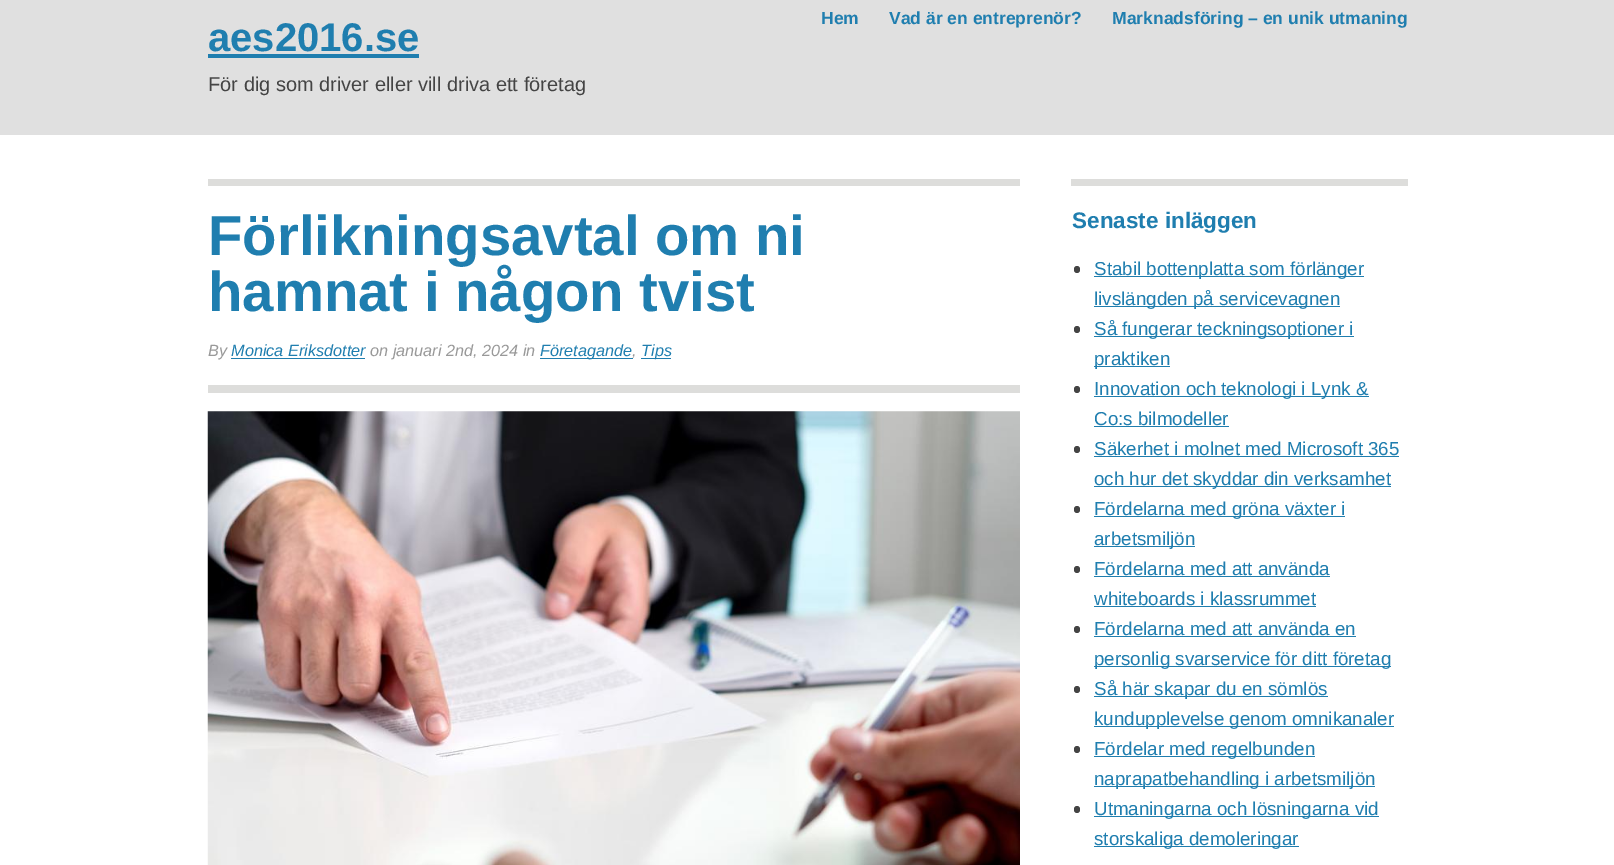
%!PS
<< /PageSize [1614 865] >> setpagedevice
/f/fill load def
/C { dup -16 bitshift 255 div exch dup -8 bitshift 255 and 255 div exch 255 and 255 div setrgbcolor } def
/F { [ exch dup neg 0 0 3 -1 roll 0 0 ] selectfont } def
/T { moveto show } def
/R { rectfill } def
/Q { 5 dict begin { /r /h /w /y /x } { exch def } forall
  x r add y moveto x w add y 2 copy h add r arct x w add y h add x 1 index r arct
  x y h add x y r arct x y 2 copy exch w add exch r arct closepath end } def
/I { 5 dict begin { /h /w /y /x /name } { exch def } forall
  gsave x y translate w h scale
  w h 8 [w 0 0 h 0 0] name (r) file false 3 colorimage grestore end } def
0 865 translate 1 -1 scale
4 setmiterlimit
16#E0E0E0 C
0 0 1614 865 R
/LiberationSans-Bold 17.5 F
16#1F7EAF C
(Hem) 821 24 T
(Vad är en entreprenör?) 889 24 T
(Marknadsföring – en unik utmaning) 1112 24 T
/LiberationSans-Bold 40 F
(aes2016.se) 208 51 T
208 54 211 4 R
/LiberationSans-Regular 20 F
16#444444 C
(För dig som driver eller vill driva ett företag) 208 91 T
16#FFFFFF C
0 135 1614 730 R
16#DDDDDB C
208 179 812 7 R
/LiberationSans-Bold 56.25 F
16#1F7EAF C
(Förlikningsavtal om ni) 208 255 T
(hamnat i någon tvist) 208 311 T
16#DDDDDB C
208 385 812 8 R
/LiberationSans-Italic 16.25 F
16#999999 C
(By) 208 356 T
16#1F7EAF C
231 358 134 1 R
(Monica Eriksdotter) 231 356 T
16#999999 C
(on januari 2nd, 2024 in) 370 356 T
16#1F7EAF C
540 358 93 1 R
(Företagande) 540 356 T
16#999999 C
(,) 632 356 T
16#1F7EAF C
641 358 30 1 R
(Tips) 641 356 T
(1.rgb) 207 411 813 454 I
16#DDDDDB C
1071 179 337 7 R
/LiberationSans-Bold 22.5 F
16#1F7EAF C
(Senaste inläggen) 1072 228 T
16#444444 C
1074 266 6 7 3 Q f
16#1F7EAF C
1094 276 270 1 R
/LiberationSans-Regular 18.75 F
(Stabil bottenplatta som förlänger) 1094 275 T
1094 306 246 1 R
(livslängden på servicevagnen) 1094 305 T
16#444444 C
1074 326 6 7 3 Q f
16#1F7EAF C
1094 336 260 1 R
(Så fungerar teckningsoptioner i) 1094 335 T
1094 366 76 1 R
(praktiken) 1094 365 T
16#444444 C
1074 386 6 7 3 Q f
16#1F7EAF C
1094 396 275 1 R
(Innovation och teknologi i Lynk &) 1094 395 T
(Co:s bilmodeller) 1094 425 T
1094 426 135 1 R
16#444444 C
1074 446 6 7 3 Q f
16#1F7EAF C
(Säkerhet i molnet med Microsoft 365) 1094 455 T
1094 456 305 1 R
1094 486 297 1 R
(och hur det skyddar din verksamhet) 1094 485 T
16#444444 C
1074 506 6 7 3 Q f
16#1F7EAF C
1094 516 251 1 R
(Fördelarna med gröna växter i) 1094 515 T
1094 546 101 1 R
(arbetsmiljön) 1094 545 T
16#444444 C
1074 566 6 7 3 Q f
16#1F7EAF C
(Fördelarna med att använda) 1094 575 T
1094 576 236 1 R
(whiteboards i klassrummet) 1094 605 T
1094 606 222 1 R
16#444444 C
1074 626 6 7 3 Q f
16#1F7EAF C
(Fördelarna med att använda en) 1094 635 T
1094 636 262 1 R
1094 666 297 1 R
(personlig svarservice för ditt företag) 1094 665 T
16#444444 C
1074 686 6 7 3 Q f
16#1F7EAF C
1094 696 234 1 R
(Så här skapar du en sömlös) 1094 695 T
1094 726 300 1 R
(kundupplevelse genom omnikanaler) 1094 725 T
16#444444 C
1074 746 6 7 3 Q f
16#1F7EAF C
1094 756 221 1 R
(Fördelar med regelbunden) 1094 755 T
1094 786 281 1 R
(naprapatbehandling i arbetsmiljön) 1094 785 T
16#444444 C
1074 806 6 7 3 Q f
16#1F7EAF C
1094 816 285 1 R
(Utmaningarna och lösningarna vid) 1094 815 T
1094 846 205 1 R
(storskaliga demoleringar) 1094 845 T
showpage
